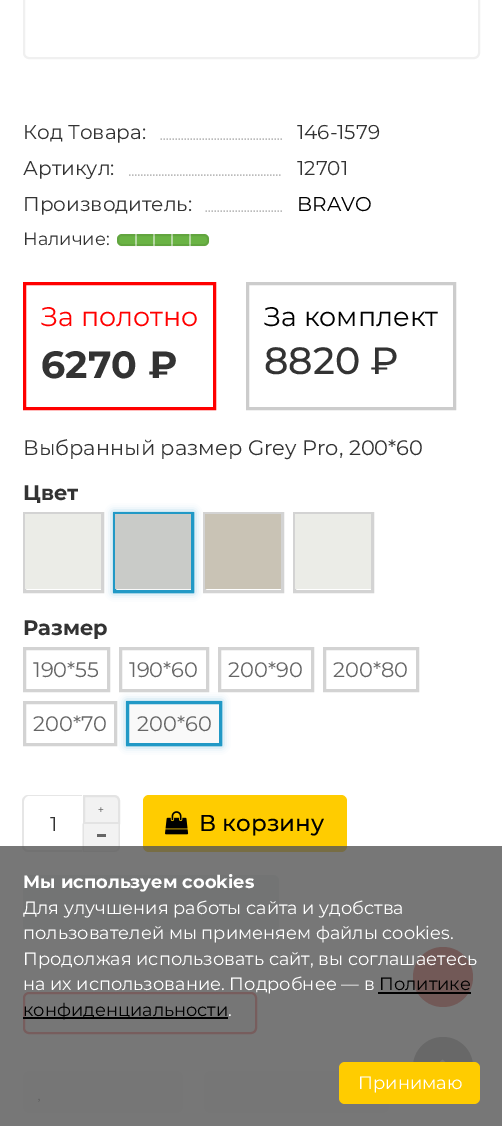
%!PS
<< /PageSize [502 1126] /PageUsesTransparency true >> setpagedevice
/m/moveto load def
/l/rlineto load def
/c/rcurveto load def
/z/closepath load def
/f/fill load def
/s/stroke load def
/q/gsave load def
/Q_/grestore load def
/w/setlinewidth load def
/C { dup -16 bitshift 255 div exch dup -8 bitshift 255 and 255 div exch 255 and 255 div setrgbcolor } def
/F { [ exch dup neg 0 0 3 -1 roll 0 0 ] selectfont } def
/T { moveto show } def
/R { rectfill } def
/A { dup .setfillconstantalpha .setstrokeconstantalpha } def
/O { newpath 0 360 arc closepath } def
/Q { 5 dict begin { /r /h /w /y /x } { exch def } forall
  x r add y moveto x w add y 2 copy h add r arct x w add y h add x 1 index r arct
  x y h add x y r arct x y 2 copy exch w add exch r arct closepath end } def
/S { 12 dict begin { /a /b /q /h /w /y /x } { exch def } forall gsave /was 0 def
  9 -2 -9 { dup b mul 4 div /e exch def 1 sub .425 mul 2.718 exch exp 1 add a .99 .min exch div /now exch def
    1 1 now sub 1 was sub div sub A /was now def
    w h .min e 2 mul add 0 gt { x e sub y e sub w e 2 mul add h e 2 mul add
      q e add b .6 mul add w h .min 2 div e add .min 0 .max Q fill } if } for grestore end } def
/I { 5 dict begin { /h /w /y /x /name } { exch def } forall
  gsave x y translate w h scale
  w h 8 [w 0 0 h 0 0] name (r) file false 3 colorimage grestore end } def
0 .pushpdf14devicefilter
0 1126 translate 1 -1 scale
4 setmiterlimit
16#FFFFFF C
0 0 502 1126 R
16#F0F0F0 C
2 w
24 -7 455 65 5 Q s
/Montserrat-Regular 20 F
16#333333 C
(Код Товара:) 23 139 T
16#BBBBBB C
1.5 w
[1.5 1.5] 0 setdash
160.5 139 m 121.5 0 l s
16#333333 C
(146-1579) 297 139 T
(Артикул:) 23 175 T
16#BBBBBB C
129 175 m 153 0 l s
16#333333 C
(12701) 297 175 T
(Производитель:) 23 211 T
16#BBBBBB C
205.5 211 m 76.5 0 l s
16#000000 C
(BRAVO) 297 211 T
/Montserrat-Regular 17.85 F
16#333333 C
(Наличие:) 23 245 T
16#6AB344 C
117 234 92 12 5 Q f
16#B5D9A2 C
153 234 2 12 R
135 234 2 12 R
189 234 2 12 R
171 234 2 12 R
0.08 A
16#000000 C
2 w
[] 0 setdash
118 235 90 10 4 Q s
1 A
16#FF0000 C
3 w
24.5 283.5 190 125 rectstroke
/Montserrat-Regular 27 F
(За полотно) 41 326 T
/Montserrat-Bold 38 F
16#333333 C
(6270 ₽) 41 378 T
16#CCCCCC C
247.5 283.5 207 125 rectstroke
/Montserrat-Regular 27 F
16#000000 C
(За комплект) 264 326 T
/Montserrat-Medium 38 F
16#333333 C
(8820 ₽) 264 374 T
/Montserrat-Regular 21 F
(Выбранный размер Grey Pro, 200*60) 23 455 T
/Montserrat-Bold 21 F
(Цвет) 23 500 T
16#D3D3D3 C
24.5 513.5 78 78 rectstroke
16#EBECE7 C
25 514 76 75 R
16#2199C6 C
113 512 81 81 0 4 .45 S
16#F9F9F9 C
116 589 75 1 R
16#2199C6 C
114.5 513.5 78 78 rectstroke
16#C9CBC8 C
115 514 76 75 R
16#D3D3D3 C
204.5 513.5 78 78 rectstroke
16#C9C3B5 C
205 514 76 75 R
16#D3D3D3 C
294.5 513.5 78 78 rectstroke
16#EBECE7 C
295 514 76 75 R
16#333333 C
(Размер) 23 635 T
16#D3D3D3 C
24.5 648.5 84 42 rectstroke
/Montserrat-Regular 21 F
16#666666 C
(190*55) 33 677 T
16#D3D3D3 C
120.5 648.5 87 42 rectstroke
16#666666 C
(190*60) 129 677 T
16#D3D3D3 C
219.5 648.5 93 42 rectstroke
16#666666 C
(200*90) 228 677 T
16#D3D3D3 C
324.5 648.5 93 42 rectstroke
16#666666 C
(200*80) 333 677 T
16#D3D3D3 C
24.5 702.5 91 42 rectstroke
16#666666 C
(200*70) 33 731 T
16#2199C6 C
126 701 96 45 0 4 .45 S
16#F9F9F9 C
127.5 702.5 m 93 0 l 0 42 l -93 0 l z q f Q_
16#2199C6 C
s
16#666666 C
(200*60) 137 731 T
16#F2F2F2 C
84 796 m 30 0 l 3 0 5 2 5 5 c 0 22 l -35 0 l z q f Q_
16#E3E3E3 C
2 w
s
/LiberationSerif-Bold 10 F
16#666666 C
(+) 98 813 T
16#F2F2F2 C
83 824 m 37 0 l 0 22 l 0 3.5 -2.5 6 -6 6 c -31 0 l z f
16#E3E3E3 C
82.5 823.5 m 37.5 0 l 0 22.5 l 0 3.5 -2.5 6 -6 6 c -31.5 0 l z 84 823.5 m 34.5 0 l 0 22.5 l 0 2.5 -2 4.5 -4.5 4.5 c -30 0 l z eofill
16#666666 C
97 834 9 3 R
16#E6E6E6 C
28 795 m 54 0 l 0 57 l -54 0 l -3 0 -6 -3 -6 -6 c 0 -45 l 0 -3 3 -6 6 -6 c z 28 796 m 54 0 l 0 54 l -54 0 l -2 0 -4 -2 -4 -4 c 0 -45 l 0 -2 2 -5 4 -5 c z eofill
/Montserrat-Regular 20 F
16#333333 C
(1) 50 831 T
16#FFCC00 C
143 795 204 57 6 Q f
(1.rgb) 165 811 24 24 I
/Montserrat-Medium 23 F
16#000000 C
(В корзину) 199 831 T
16#E9F2EF C
23 875 256 57 6 Q f
16#FCFCFC C
24 993 232 40 5 Q q f Q_
16#FE7E7E C
s
16#FCFCFC C
23 1071 160 42 6 Q f
(2.rgb) 38 1098 2 4 I
204 1071 185 42 6 Q f
16#E66761 C
443 977 30 O f
16#B3B3B3 C
443 1067 30 O f
(3.rgb) 439 1059 7 3 I
0.8 A
16#555555 C
0 846 502 280 R
/Montserrat-Bold 17.85 F
1 A
16#FFFFFF C
(Мы используем cookies) 23 888 T
/Montserrat-Regular 17.85 F
(Для улучшения работы сайта и удобства) 23 914 T
(пользователей мы применяем файлы cookies.) 23 939 T
(Продолжая использовать сайт, вы соглашаетесь) 23 965 T
(на их использование. Подробнее — в) 23 990 T
16#000000 C
(Политике) 379 990 T
378 992 93 2 R
23 1017 205 2 R
(конфиденциальности) 23 1016 T
16#FFFFFF C
(.) 228 1016 T
16#FFCC00 C
339 1062 141 42 6 Q f
/Montserrat-Regular 18 F
16#FFFFFF C
(Принимаю) 358 1089 T
.poppdf14devicefilter showpage
